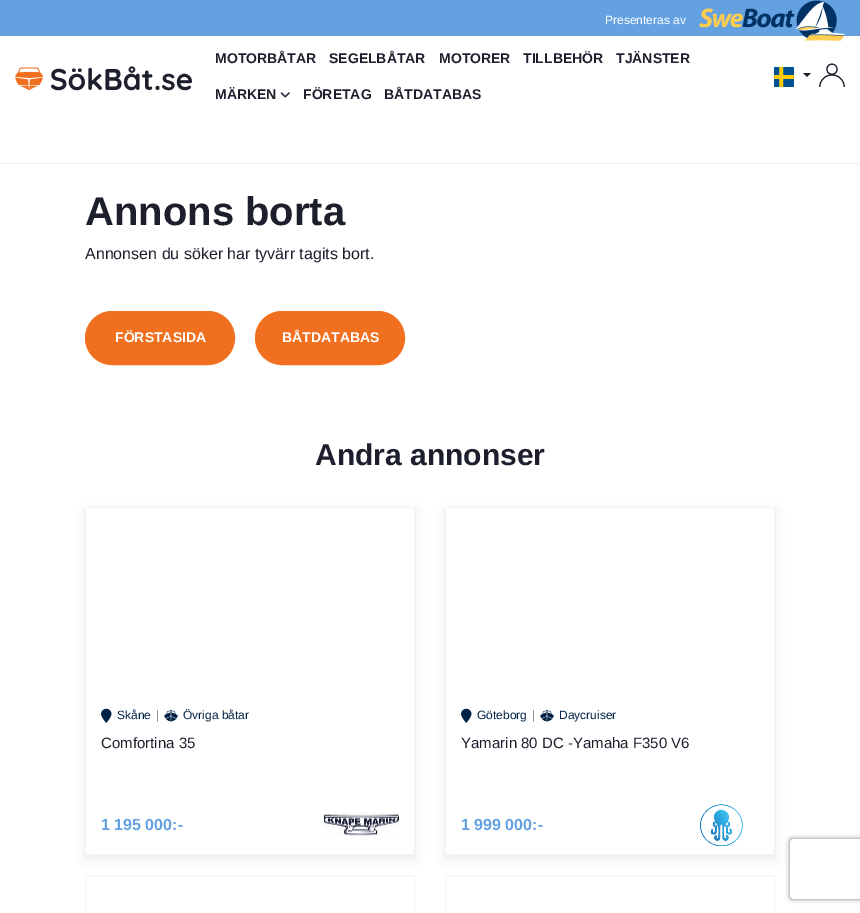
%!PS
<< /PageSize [860 913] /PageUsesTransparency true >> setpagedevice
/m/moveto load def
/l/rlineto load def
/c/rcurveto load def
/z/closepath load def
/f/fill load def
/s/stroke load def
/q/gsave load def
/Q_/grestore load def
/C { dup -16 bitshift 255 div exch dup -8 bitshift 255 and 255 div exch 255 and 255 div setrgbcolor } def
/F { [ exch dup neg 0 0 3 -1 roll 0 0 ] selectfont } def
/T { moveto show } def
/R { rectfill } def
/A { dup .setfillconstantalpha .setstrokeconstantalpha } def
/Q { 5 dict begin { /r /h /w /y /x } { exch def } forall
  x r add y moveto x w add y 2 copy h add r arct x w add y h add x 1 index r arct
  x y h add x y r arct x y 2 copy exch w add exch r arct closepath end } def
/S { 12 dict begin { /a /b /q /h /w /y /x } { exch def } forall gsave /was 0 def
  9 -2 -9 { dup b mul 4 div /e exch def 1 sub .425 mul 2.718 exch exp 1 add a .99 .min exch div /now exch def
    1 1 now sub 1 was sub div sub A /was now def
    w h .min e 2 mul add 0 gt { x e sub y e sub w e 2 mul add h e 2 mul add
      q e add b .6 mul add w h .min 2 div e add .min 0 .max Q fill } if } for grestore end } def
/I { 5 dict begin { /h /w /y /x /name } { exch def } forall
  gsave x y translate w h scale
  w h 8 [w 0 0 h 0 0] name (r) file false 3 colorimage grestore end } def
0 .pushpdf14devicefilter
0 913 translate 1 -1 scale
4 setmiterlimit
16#FFFFFF C
0 0 860 913 R
16#EDF0F2 C
0 163 860 1 R
16#63A1E1 C
0 0 860 36 R
/LiberationSans-Regular 12 F
16#FFFFFF C
(Presenteras av) 605 24 T
(1.rgb) 699 0 146 41 I
(2.rgb) 15 66 178 25 I
/LiberationSans-Bold 14 F
16#1D1F2D C
(MOTORBÅTAR) 215 63 T
(SEGELBÅTAR) 329 63 T
(MOTORER) 439 63 T
(TILLBEHÖR) 523 63 T
(TJÄNSTER) 616 63 T
(MÄRKEN) 215 99 T
(3.rgb) 280 92 10 6 I
(FÖRETAG) 303 99 T
(BÅTDATABAS) 384 99 T
(4.rgb) 774 67 20 20 I
803 73 m 8 0 l -4 4 l z f
(5.rgb) 819 63 26 24 I
/LiberationSans-Bold 40 F
(Annons borta) 85 225 T
/LiberationSans-Regular 16 F
(Annonsen du söker har tyvärr tagits bort.) 85 259 T
16#F07020 C
85.5 311.5 149 53 26.5 Q q f Q_
s
/LiberationSans-Bold 14 F
16#FFFFFF C
(FÖRSTASIDA) 115 342 T
16#F07020 C
255.5 311.5 149 53 26.5 Q q f Q_
s
16#FFFFFF C
(BÅTDATABAS) 282 342 T
/LiberationSans-Bold 30 F
16#1D1F2D C
(Andra annonser) 315 465 T
q
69 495 m 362 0 l 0 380 l -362 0 l z 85 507 m 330 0 l 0 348 l -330 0 l z eoclip newpath
85 511 330 348 0 5 .09 S
Q_
16#F4F4F5 C
85.5 507.5 329 347 rectstroke
(6.rgb) 101 708 11 15 I
/LiberationSans-Regular 12 F
16#002244 C
(Skåne) 117 719 T
16#8E8F96 C
(|) 156 719 T
(7.rgb) 164 710 14 12 I
16#002244 C
(Övriga båtar) 183 719 T
/LiberationSans-Regular 15 F
16#1D1F2D C
(Comfortina 35) 101 748 T
/LiberationSans-Bold 16 F
16#63A1E1 C
(1 195 000:-) 101 830 T
(8.rgb) 323 812 76 24 I
q
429 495 m 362 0 l 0 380 l -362 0 l z 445 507 m 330 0 l 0 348 l -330 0 l z eoclip newpath
16#1D1F2D C
445 511 330 348 0 5 .09 S
Q_
16#F4F4F5 C
445.5 507.5 329 347 rectstroke
(6.rgb) 461 708 11 15 I
/LiberationSans-Regular 12 F
16#002244 C
(Göteborg) 477 719 T
16#8E8F96 C
(|) 532 719 T
(7.rgb) 540 710 14 12 I
16#002244 C
(Daycruiser) 559 719 T
/LiberationSans-Regular 15 F
16#1D1F2D C
(Yamarin 80 DC -Yamaha F350 V6) 461 748 T
/LiberationSans-Bold 16 F
16#63A1E1 C
(1 999 000:-) 461 830 T
(9.rgb) 700 804 43 42 I
16#F4F4F5 C
85.5 875.5 329 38 rectstroke
445.5 875.5 329 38 rectstroke
q
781 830 m 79 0 l 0 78 l -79 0 l z 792 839 m 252 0 l 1 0 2 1 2 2 c 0 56 l 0 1 -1 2 -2 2 c -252 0 l -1 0 -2 -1 -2 -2 c 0 -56 l 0 -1 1 -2 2 -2 c z eoclip newpath
16#808080 C
790 839 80 60 2 2.5 1 S
Q_
.poppdf14devicefilter showpage
